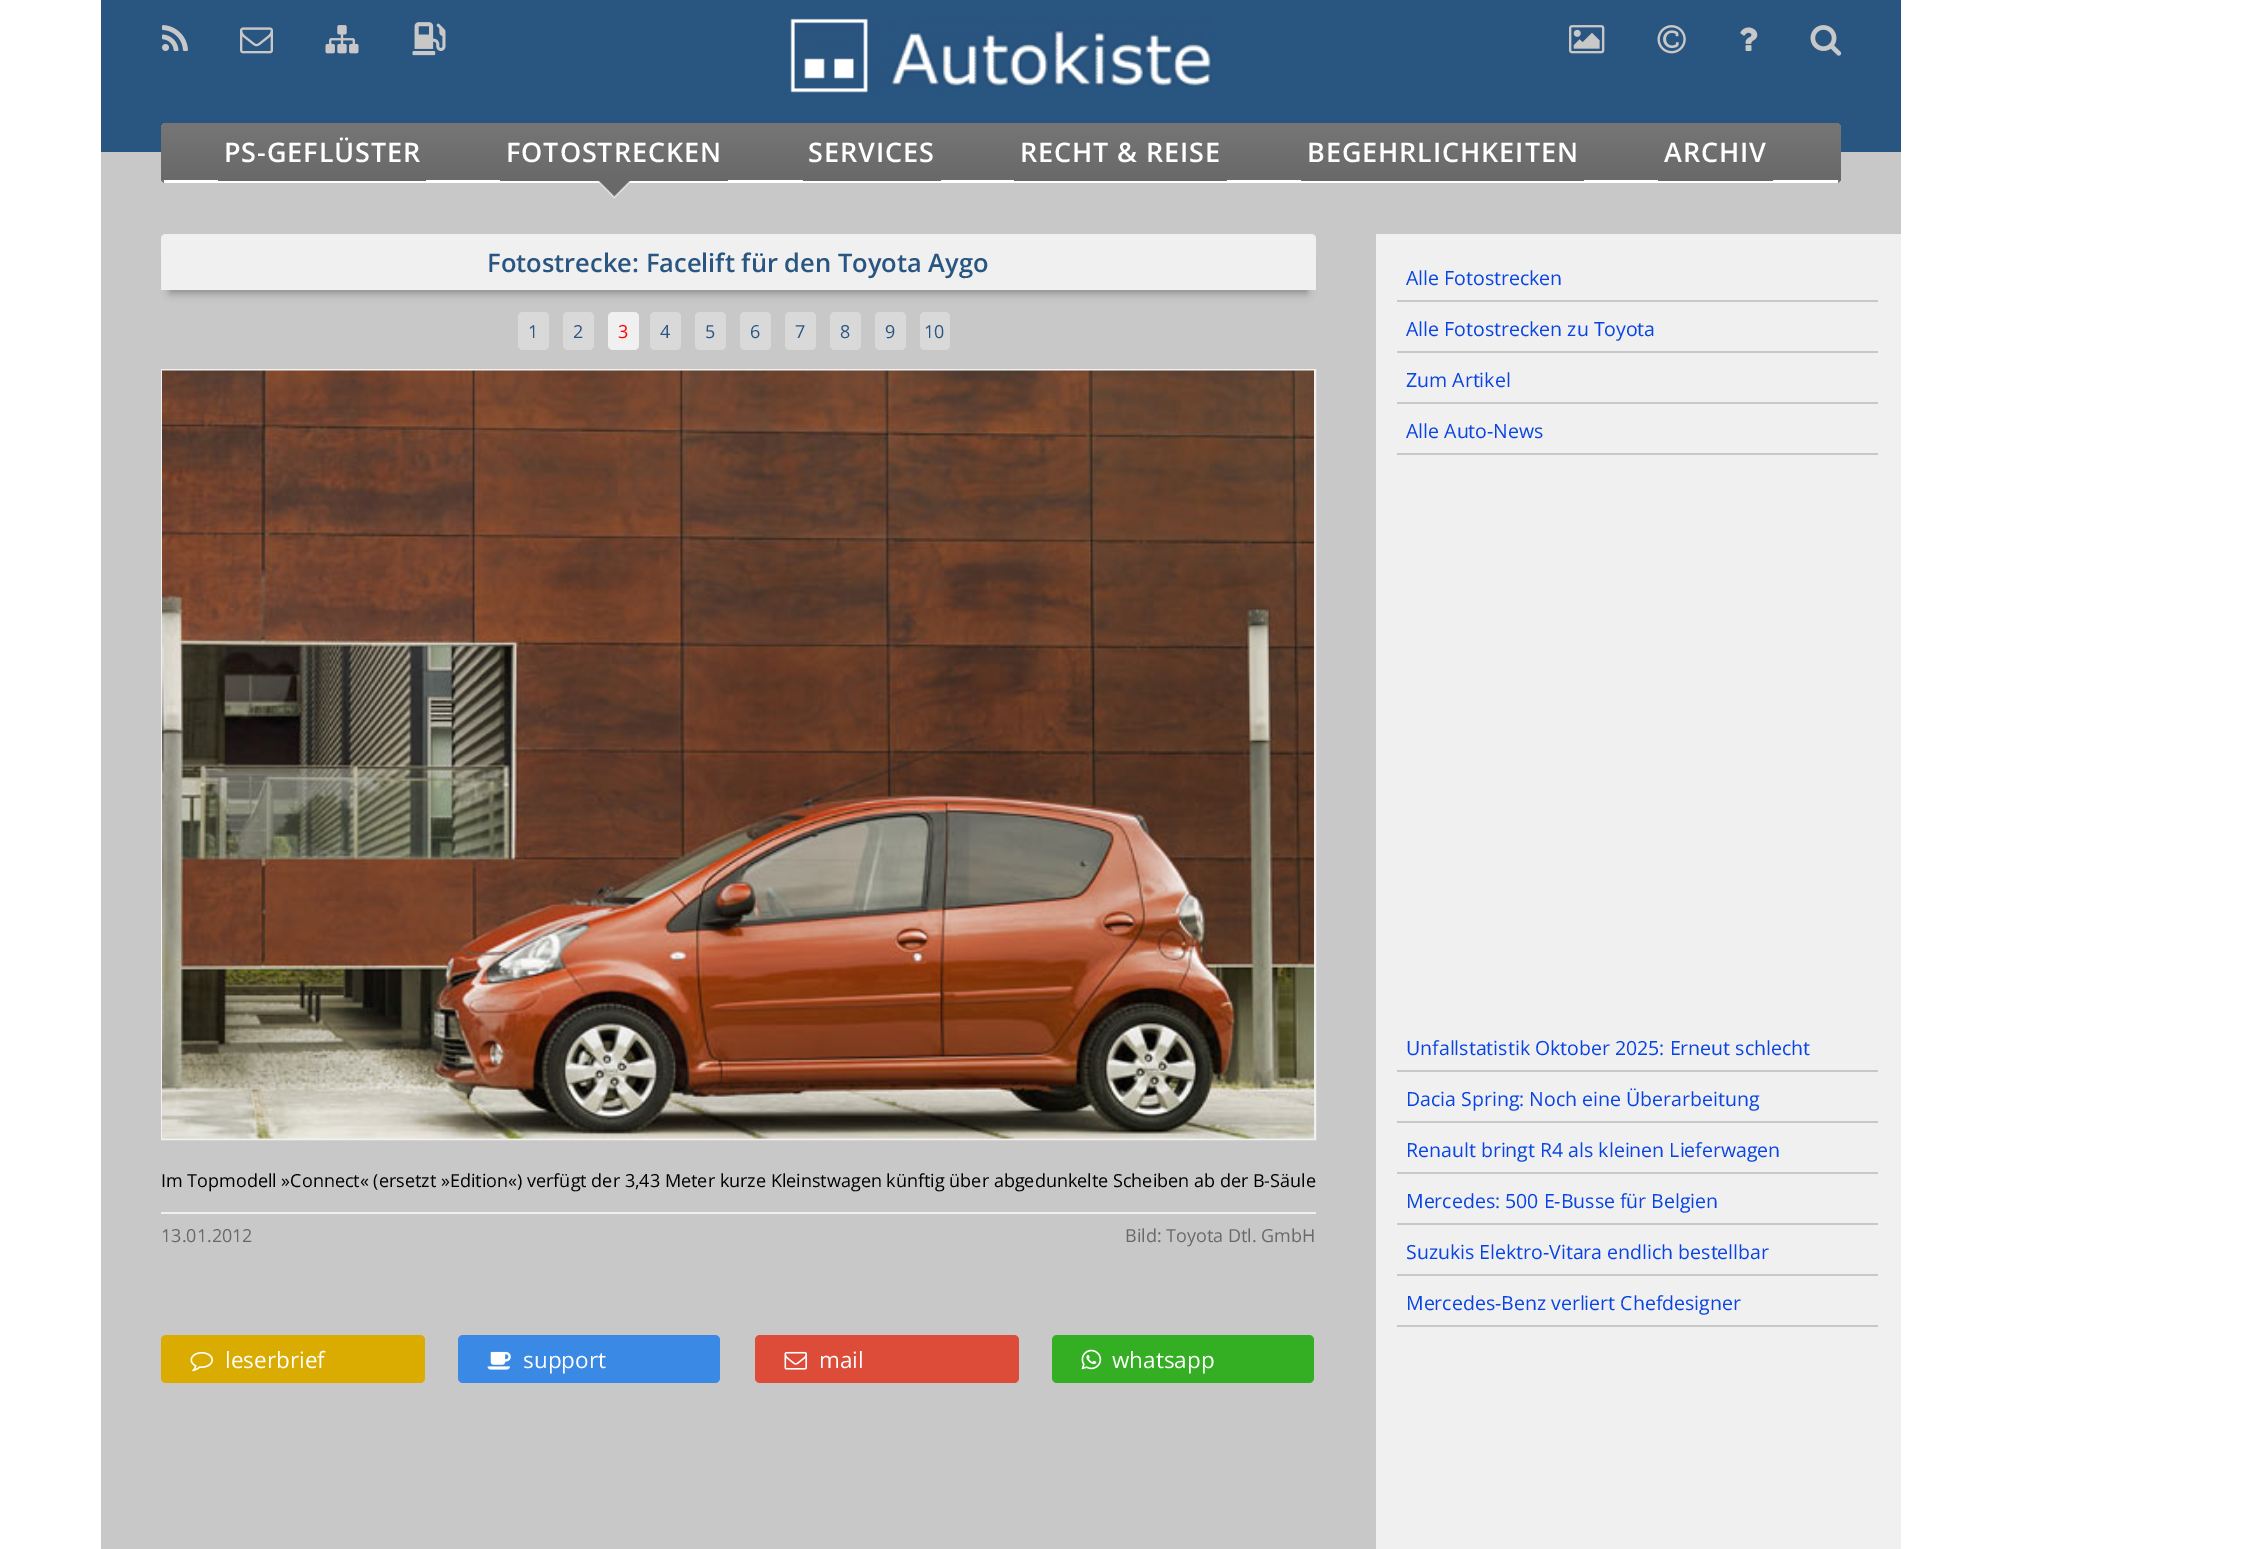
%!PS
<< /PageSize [2255 1549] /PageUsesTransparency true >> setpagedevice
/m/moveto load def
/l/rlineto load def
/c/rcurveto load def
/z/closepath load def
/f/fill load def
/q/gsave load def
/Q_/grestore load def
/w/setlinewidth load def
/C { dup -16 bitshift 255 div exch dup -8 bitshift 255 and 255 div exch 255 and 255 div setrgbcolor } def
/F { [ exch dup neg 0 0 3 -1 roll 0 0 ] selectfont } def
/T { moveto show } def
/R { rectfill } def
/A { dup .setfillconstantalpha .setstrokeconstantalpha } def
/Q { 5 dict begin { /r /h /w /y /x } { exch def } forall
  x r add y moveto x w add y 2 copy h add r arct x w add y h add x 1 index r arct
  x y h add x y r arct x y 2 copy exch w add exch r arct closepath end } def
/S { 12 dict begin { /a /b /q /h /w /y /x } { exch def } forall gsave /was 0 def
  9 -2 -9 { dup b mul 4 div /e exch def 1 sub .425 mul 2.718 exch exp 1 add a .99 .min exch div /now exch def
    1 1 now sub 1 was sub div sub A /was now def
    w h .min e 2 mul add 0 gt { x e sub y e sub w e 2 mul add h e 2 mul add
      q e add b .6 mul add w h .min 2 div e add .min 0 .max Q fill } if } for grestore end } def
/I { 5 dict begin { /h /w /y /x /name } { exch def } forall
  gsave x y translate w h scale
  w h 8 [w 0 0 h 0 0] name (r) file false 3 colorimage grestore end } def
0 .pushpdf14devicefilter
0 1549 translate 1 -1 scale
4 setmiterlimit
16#FFFFFF C
0 0 2255 1549 R
16#C8C8C8 C
101 152 1800 1397 R
16#295581 C
101 0 1800 152 R
(1.rgb) 162 25 26 26 I
(2.rgb) 240 27 33 27 I
(3.rgb) 325 25 34 29 I
(4.rgb) 412 22 34 34 I
(5.rgb) 790 18 422 75 I
(6.rgb) 1569 25 36 29 I
(7.rgb) 1657 25 29 29 I
(8.rgb) 1740 27 18 24 I
(9.rgb) 1810 25 32 31 I
16#696969 C
161 123 1680 60 6 Q f
q
161 123 1680 60 6 Q clip newpath
q 167 123 m 1668 0 l 3.5 0 6 2.5 6 6 c 0 51 l -1680 0 l 0 -51 l 0 -3.5 2.5 -6 6 -6 c z clip newpath
<< /ShadingType 2 /ColorSpace /DeviceRGB /Coords [1001 123 1001 180] /Extend [true true] /Function << /FunctionType 2 /Domain [0 1] /C0 [.463 .463 .463] /C1 [.412 .412 .412] /N 1 >> >> shfill Q_
q 161 180 m 1680 0 l 0 3 l -1680 0 l z clip newpath
<< /ShadingType 2 /ColorSpace /DeviceRGB /Coords [1001 180 1001 237] /Extend [true true] /Function << /FunctionType 2 /Domain [0 1] /C0 [.463 .463 .463] /C1 [.412 .412 .412] /N 1 >> >> shfill Q_
Q_
16#FFFFFF C
164 180 1674 3 R
/OpenSans-SemiBold 27 F
224 162 m .9 0 (PS-GEFLÜSTER) ashow
16#696969 C
218 180 208 1 R
16#FFFFFF C
506 162 m .9 0 (FOTOSTRECKEN) ashow
16#696969 C
500 180 228 1 R
16#FFFFFF C
808 162 m .9 0 (SERVICES) ashow
16#696969 C
803 180 138 1 R
16#FFFFFF C
1020 162 m .9 0 (RECHT & REISE) ashow
16#696969 C
1014 180 213 1 R
16#FFFFFF C
1307 162 m .9 0 (BEGEHRLICHKEITEN) ashow
16#696969 C
1301 180 283 1 R
16#FFFFFF C
1664 162 m .9 0 (ARCHIV) ashow
16#696969 C
1658 180 115 1 R
(10.rgb) 597 181 35 17 I
16#888888 C
170 255 1137 38 0 4.5 1 S
16#F0F0F0 C
166 234 m 1145 0 l 3 0 5 2 5 5 c 0 51 l -1155 0 l 0 -51 l 0 -3 2 -5 5 -5 c z f
/OpenSans-SemiBold 25.5 F
16#295581 C
(Fotostrecke: Facelift für den Toyota Aygo) 487 272 T
16#D9D9D9 C
518 312 31 38 5 Q f
/OpenSans-Regular 18 F
16#295581 C
(1) 528 338 T
16#D9D9D9 C
563 312 31 38 5 Q f
16#295581 C
(2) 573 338 T
16#F0F0F0 C
608 312 31 38 5 Q f
16#FF0000 C
(3) 618 338 T
16#D9D9D9 C
650 312 31 38 5 Q f
16#295581 C
(4) 660 338 T
16#D9D9D9 C
695 312 31 38 5 Q f
16#295581 C
(5) 705 338 T
16#D9D9D9 C
740 312 31 38 5 Q f
16#295581 C
(6) 750 338 T
16#D9D9D9 C
785 312 31 38 5 Q f
16#295581 C
(7) 795 338 T
16#D9D9D9 C
830 312 31 38 5 Q f
16#295581 C
(8) 840 338 T
16#D9D9D9 C
875 312 31 38 5 Q f
16#295581 C
(9) 885 338 T
16#D9D9D9 C
920 312 30 38 5 Q f
16#295581 C
(10) 924 338 T
16#F0F0F0 C
2 w
162 370 1153 769 rectstroke
(11.rgb) 162 370 1152 769 I
16#000000 C
(Im Topmodell »Connect« \(ersetzt »Edition«\) verfügt der 3,43 Meter kurze Kleinstwagen künftig über abgedunkelte Scheiben ab der B-Säule) 161 1187 T
16#F0F0F0 C
161 1212 1155 2 R
16#696969 C
(13.01.2012) 161 1242 T
(Bild: Toyota Dtl. GmbH) 1125 1242 T
16#DAAC02 C
161 1335 264 48 5 Q f
(12.rgb) 190 1351 23 21 I
/OpenSans-Regular 22.5 F
16#FFFFFF C
(leserbrief) 225 1368 T
16#3989E5 C
458 1335 262 48 5 Q f
(13.rgb) 487 1351 24 19 I
16#FFFFFF C
(support) 523 1368 T
16#DD4B39 C
755 1335 264 48 5 Q f
(14.rgb) 784 1351 23 19 I
16#FFFFFF C
(mail) 819 1368 T
16#34AF23 C
1052 1335 262 48 5 Q f
(15.rgb) 1081 1349 21 21 I
16#FFFFFF C
(whatsapp) 1112 1368 T
16#F0F0F0 C
1376 234 525 1315 R
16#C8C8C8 C
1397 300 481 2 R
/OpenSans-Regular 19.5 F
16#0844E2 C
(Alle Fotostrecken) 1406 285 T
16#C8C8C8 C
1397 351 481 2 R
16#0844E2 C
(Alle Fotostrecken zu Toyota) 1406 336 T
16#C8C8C8 C
1397 402 481 2 R
16#0844E2 C
(Zum Artikel) 1406 387 T
16#C8C8C8 C
1397 453 481 2 R
16#0844E2 C
(Alle Auto-News) 1406 438 T
16#C8C8C8 C
1397 1070 481 2 R
16#0844E2 C
(Unfallstatistik Oktober 2025: Erneut schlecht) 1406 1055 T
16#C8C8C8 C
1397 1121 481 2 R
16#0844E2 C
(Dacia Spring: Noch eine Überarbeitung) 1406 1106 T
16#C8C8C8 C
1397 1172 481 2 R
16#0844E2 C
(Renault bringt R4 als kleinen Lieferwagen) 1406 1157 T
16#C8C8C8 C
1397 1223 481 2 R
16#0844E2 C
(Mercedes: 500 E-Busse für Belgien) 1406 1208 T
16#C8C8C8 C
1397 1274 481 2 R
16#0844E2 C
(Suzukis Elektro-Vitara endlich bestellbar) 1406 1259 T
16#C8C8C8 C
1397 1325 481 2 R
16#0844E2 C
(Mercedes-Benz verliert Chefdesigner) 1406 1310 T
.poppdf14devicefilter showpage
